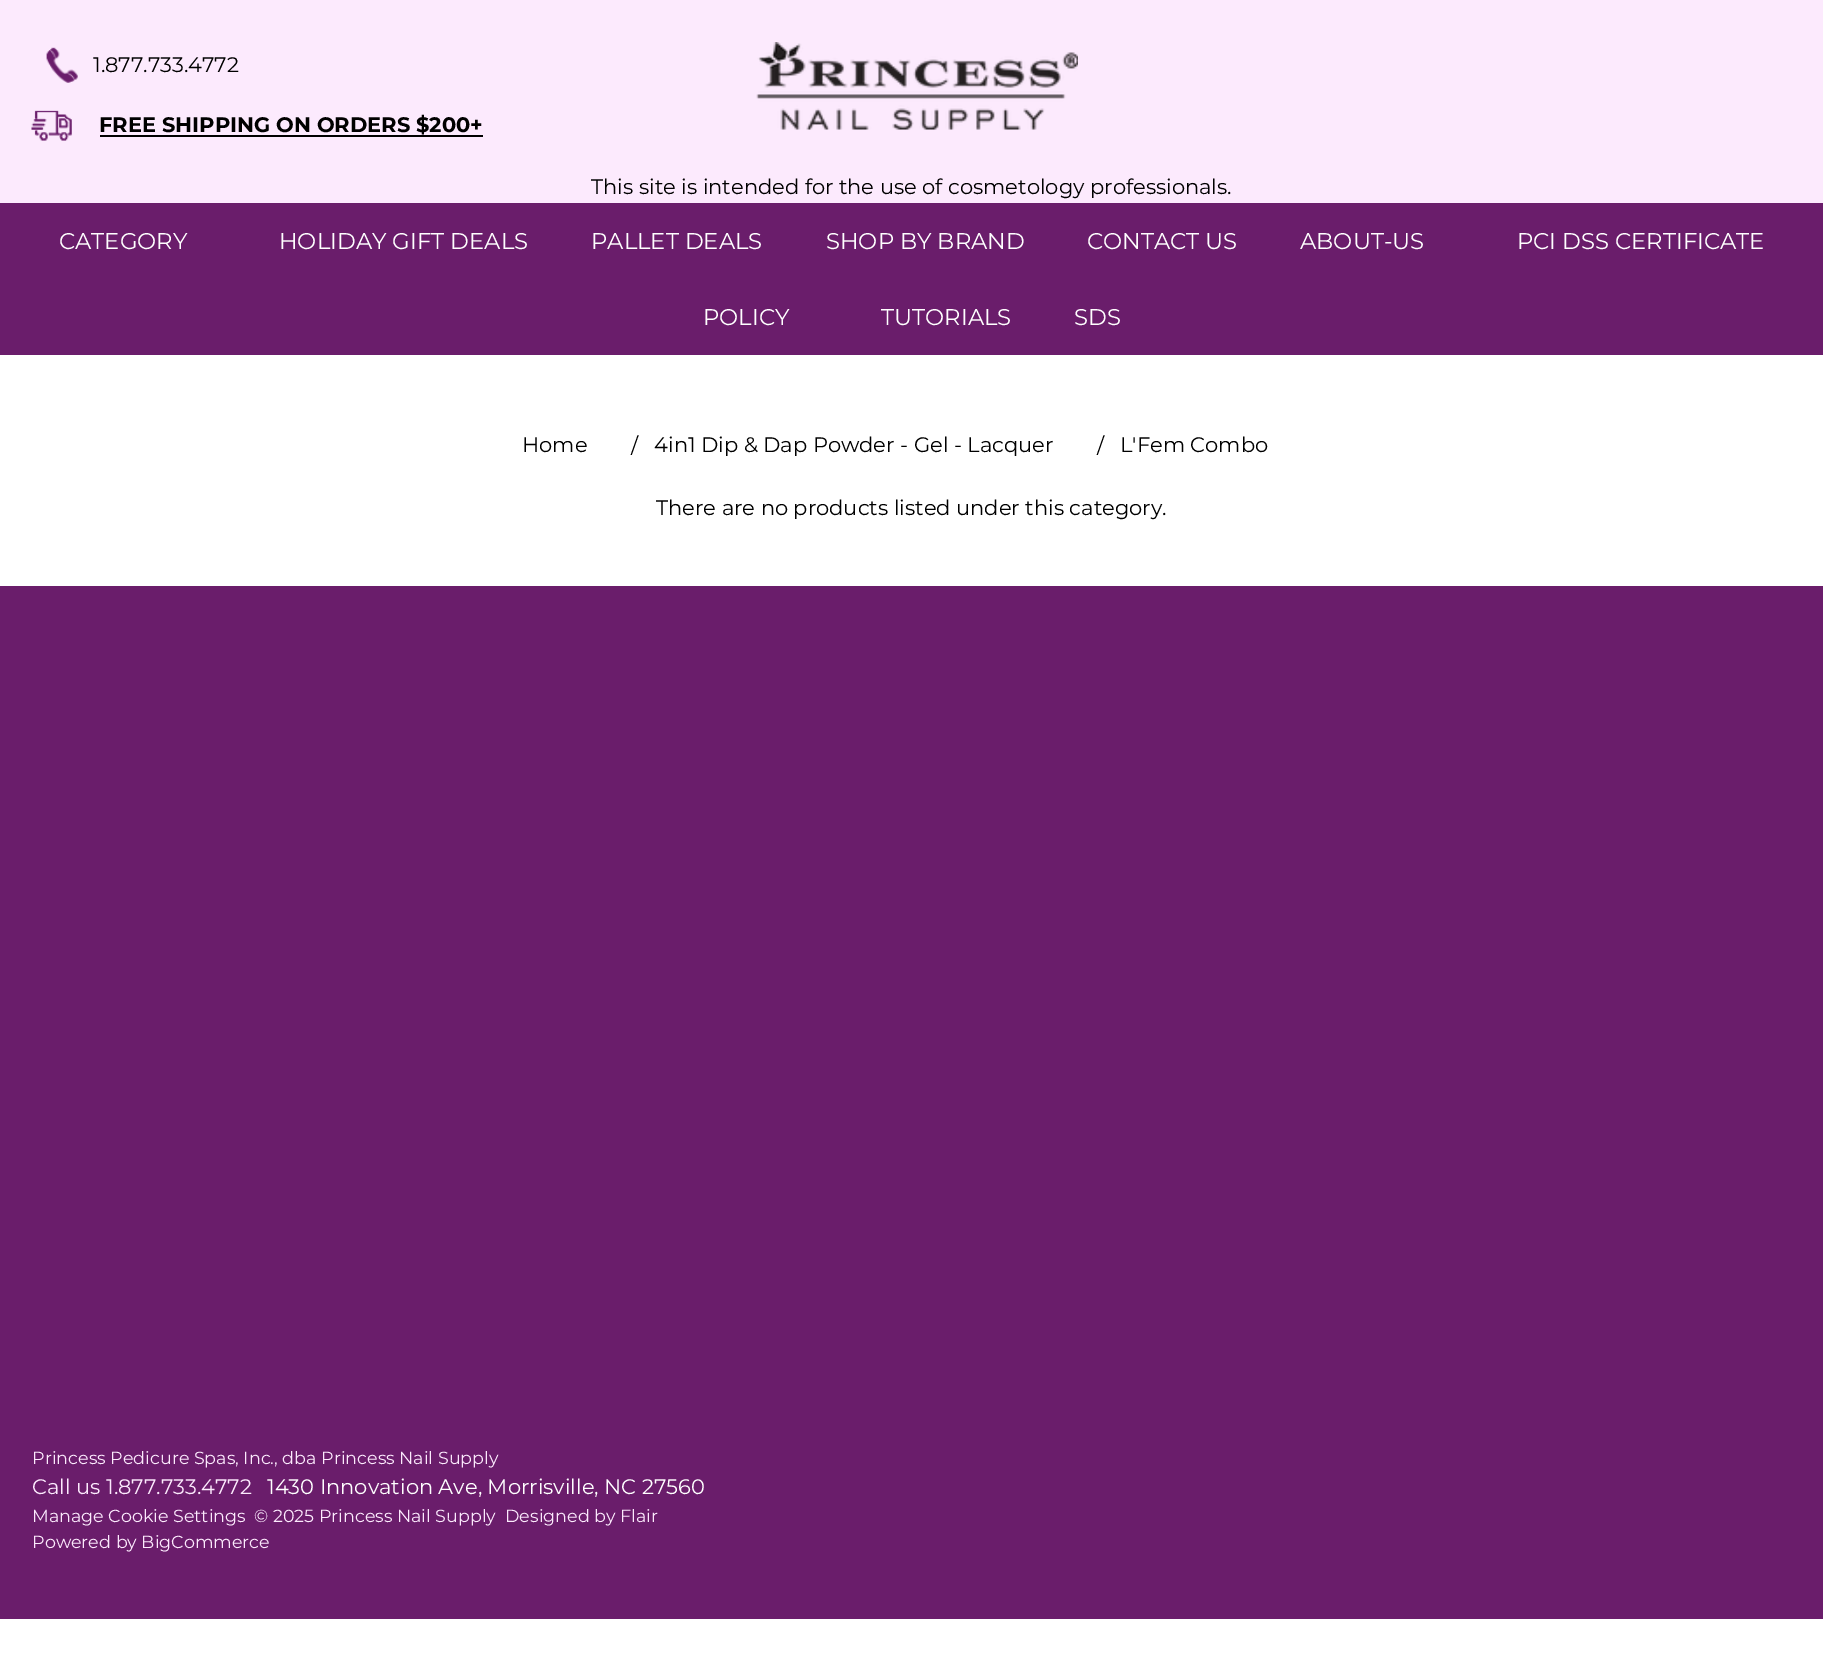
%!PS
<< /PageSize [1823 1653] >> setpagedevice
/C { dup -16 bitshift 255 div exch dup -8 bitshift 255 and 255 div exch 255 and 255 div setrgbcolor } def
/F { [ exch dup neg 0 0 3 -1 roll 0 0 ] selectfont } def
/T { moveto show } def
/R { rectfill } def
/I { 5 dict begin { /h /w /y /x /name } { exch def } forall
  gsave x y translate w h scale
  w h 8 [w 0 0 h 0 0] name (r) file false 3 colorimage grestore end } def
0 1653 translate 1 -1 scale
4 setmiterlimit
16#FFFFFF C
0 0 1823 1653 R
16#FCEAFD C
0 0 1823 203 R
(1.rgb) 46 47 32 36 I
/Montserrat-Regular 21 F
16#000000 C
(1.877.733.4772) 93 72 T
(2.rgb) 31 110 41 31 I
/Montserrat-Bold 21 F
(FREE SHIPPING ON ORDERS $200+) 99 132 T
100 135 383 2 R
(3.rgb) 756 42 322 88 I
/Montserrat-Regular 21 F
(This site is intended for the use of cosmetology professionals.) 591 194 T
16#6A1D6B C
0 203 1823 152 R
/Montserrat-Regular 22.75 F
16#FFFFFF C
(CATEGORY) 59 249 T
(HOLIDAY GIFT DEALS) 279 249 T
(PALLET DEALS) 591 249 T
(SHOP BY BRAND) 826 249 T
(CONTACT US) 1087 249 T
(ABOUT-US) 1300 249 T
(PCI DSS CERTIFICATE) 1517 249 T
(POLICY) 703 325 T
(TUTORIALS) 881 325 T
(SDS) 1074 325 T
/Montserrat-Regular 21 F
16#000000 C
(Home) 522 452 T
(/) 631 453 T
(4in1 Dip & Dap Powder - Gel - Lacquer) 654 452 T
(/) 1097 453 T
(L'Fem Combo) 1120 452 T
(There are no products listed under this category.) 656 515 T
16#6A1D6B C
0 586 1823 1033 R
/Montserrat-Regular 17.5 F
16#FCEAFD C
(Princess Pedicure Spas, Inc., dba Princess Nail Supply) 32 1464 T
/Montserrat-Regular 21 F
(Call us 1.877.733.4772) 32 1494 T
16#FFFFFF C
(1430 Innovation Ave, Morrisville, NC 27560) 267 1494 T
/Montserrat-Regular 17.5 F
16#FCEAFD C
(Manage Cookie Settings) 32 1522 T
(© 2025 Princess Nail Supply) 254 1522 T
(Designed by Flair) 505 1522 T
(Powered by BigCommerce) 32 1548 T
showpage
